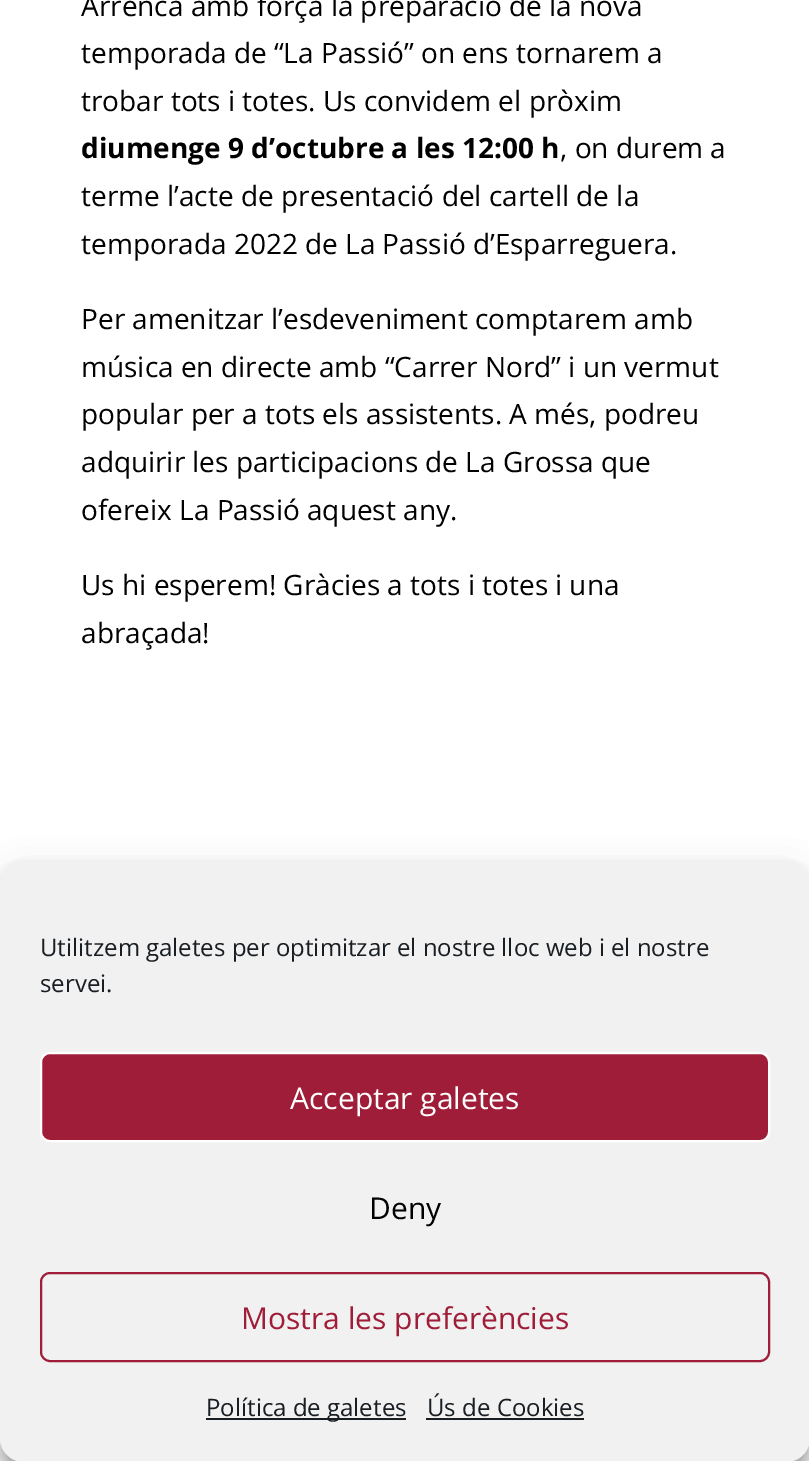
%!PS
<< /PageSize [809 1461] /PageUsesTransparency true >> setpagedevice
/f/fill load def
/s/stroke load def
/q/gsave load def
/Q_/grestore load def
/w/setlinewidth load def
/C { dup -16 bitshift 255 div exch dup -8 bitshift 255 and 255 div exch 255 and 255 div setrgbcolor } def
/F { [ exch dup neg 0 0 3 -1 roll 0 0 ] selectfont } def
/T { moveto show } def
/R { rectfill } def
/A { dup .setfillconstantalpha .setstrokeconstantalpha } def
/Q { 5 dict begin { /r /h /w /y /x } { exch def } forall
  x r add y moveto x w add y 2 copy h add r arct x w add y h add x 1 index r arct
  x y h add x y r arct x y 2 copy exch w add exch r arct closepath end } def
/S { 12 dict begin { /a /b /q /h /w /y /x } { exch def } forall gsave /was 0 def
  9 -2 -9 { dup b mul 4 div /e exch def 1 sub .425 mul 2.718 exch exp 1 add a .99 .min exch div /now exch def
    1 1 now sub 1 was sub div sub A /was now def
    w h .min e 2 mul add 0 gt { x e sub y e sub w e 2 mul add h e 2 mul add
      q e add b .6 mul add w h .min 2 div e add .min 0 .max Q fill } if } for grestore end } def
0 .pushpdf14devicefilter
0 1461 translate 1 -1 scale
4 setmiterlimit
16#FFFFFF C
0 0 809 1461 R
/OpenSans-Regular 28 F
16#000000 C
(Arrenca amb força la preparació de la nova) 81 16 T
(temporada de “La Passió” on ens tornarem a) 81 63 T
(trobar tots i totes. Us convidem el pròxim) 81 111 T
/OpenSans-Bold 28 F
(diumenge 9 d’octubre a les 12:00 h) 81 158 T
/OpenSans-Regular 28 F
(, on durem a) 560 158 T
(terme l’acte de presentació del cartell de la) 81 206 T
(temporada 2022 de La Passió d’Esparreguera.) 81 254 T
(Per amenitzar l’esdeveniment comptarem amb) 81 329 T
(música en directe amb “Carrer Nord” i un vermut) 81 377 T
(popular per a tots els assistents. A més, podreu) 81 424 T
(adquirir les participacions de La Grossa que) 81 472 T
(ofereix La Passió aquest any.) 81 520 T
(Us hi esperem! Gràcies a tots i totes i una) 81 595 T
(abraçada!) 81 643 T
0 872 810 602 24 6 .23 S
0 880 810 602 24 20 .19 S
16#F1F1F1 C
0 860 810 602 24 Q f
/OpenSans-Regular 24 F
16#191E23 C
(Utilitzem galetes per optimitzar el nostre lloc web i el nostre) 40 956 T
(servei.) 40 992 T
16#9F1D38 C
41 1053 728 88 9 Q q f Q_
16#FFFFFF C
2 w
s
/OpenSans-Regular 30 F
(Acceptar galetes) 290 1109 T
16#000000 C
(Deny) 369 1219 T
16#9F1D38 C
41 1273 728 88 9 Q s
(Mostra les preferències) 241 1329 T
16#191E23 C
206 1418 200 2 R
/OpenSans-Regular 24 F
(Política de galetes) 206 1416 T
(Ús de Cookies) 427 1416 T
426 1418 158 2 R
.poppdf14devicefilter showpage
